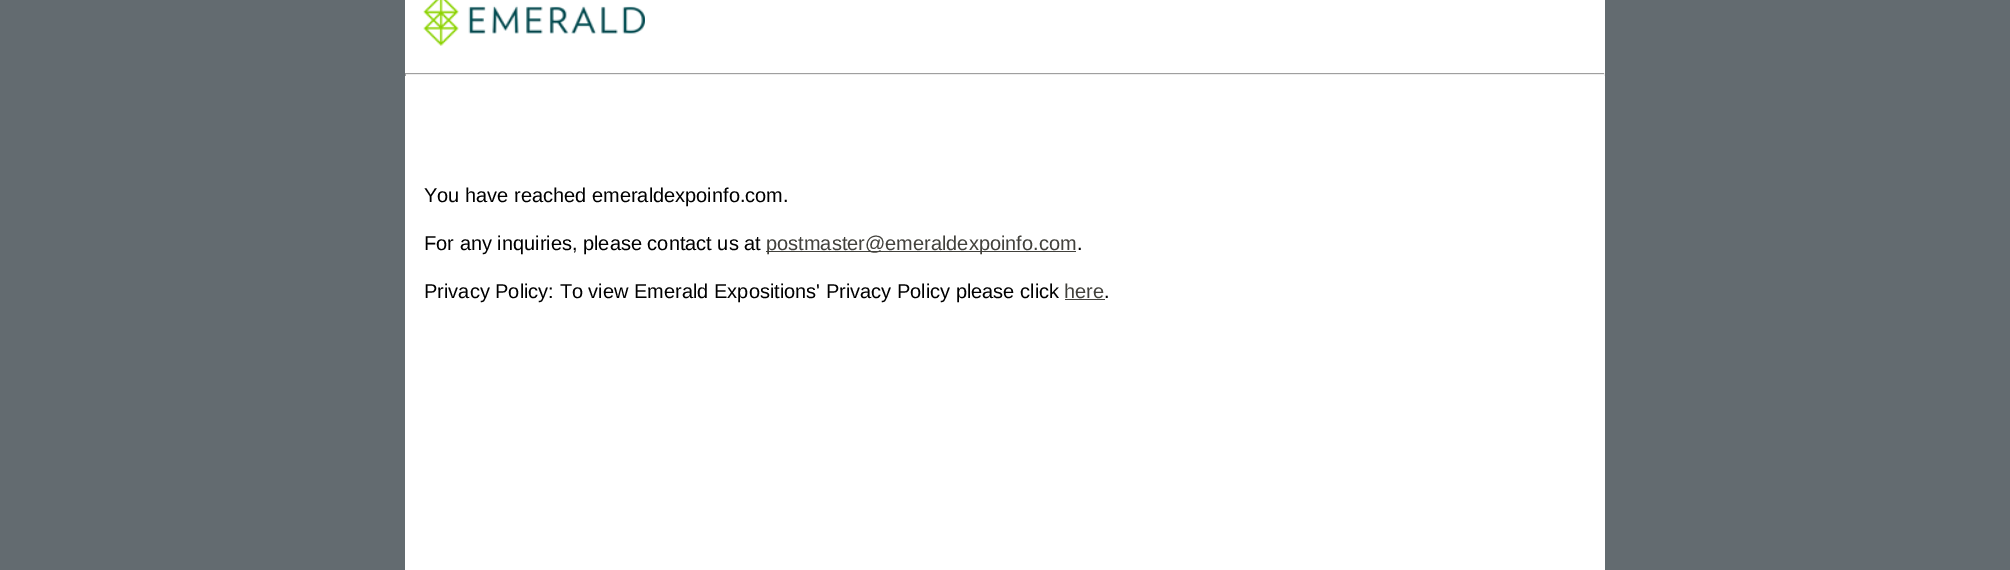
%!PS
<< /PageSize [2010 570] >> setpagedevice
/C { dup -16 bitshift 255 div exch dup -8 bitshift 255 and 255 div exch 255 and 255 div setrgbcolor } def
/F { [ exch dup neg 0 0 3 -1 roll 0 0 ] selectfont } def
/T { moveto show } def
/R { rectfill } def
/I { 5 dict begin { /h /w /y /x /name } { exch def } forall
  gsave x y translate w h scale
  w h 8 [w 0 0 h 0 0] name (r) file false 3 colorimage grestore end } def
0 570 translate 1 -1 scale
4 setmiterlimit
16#636B70 C
0 0 2010 570 R
16#FFFFFF C
405 0 1200 570 R
(1.rgb) 423 0 222 46 I
16#9F9F9F C
405 73 1200 1 R
16#EEEEEE C
1604 73 1 3 R
405 74 1200 1 R
16#9F9F9F C
405 73 1 3 R
/LiberationSans-Regular 20 F
16#000000 C
(You have reached emeraldexpoinfo.com.) 424 202 T
(For any inquiries, please contact us at) 424 250 T
16#42413C C
766 251 310 1 R
(postmaster@emeraldexpoinfo.com) 766 250 T
16#000000 C
(.) 1077 250 T
(Privacy Policy: To view Emerald Expositions' Privacy Policy please click) 424 298 T
16#42413C C
(here) 1064 298 T
1065 299 40 1 R
16#000000 C
(.) 1104 298 T
showpage
